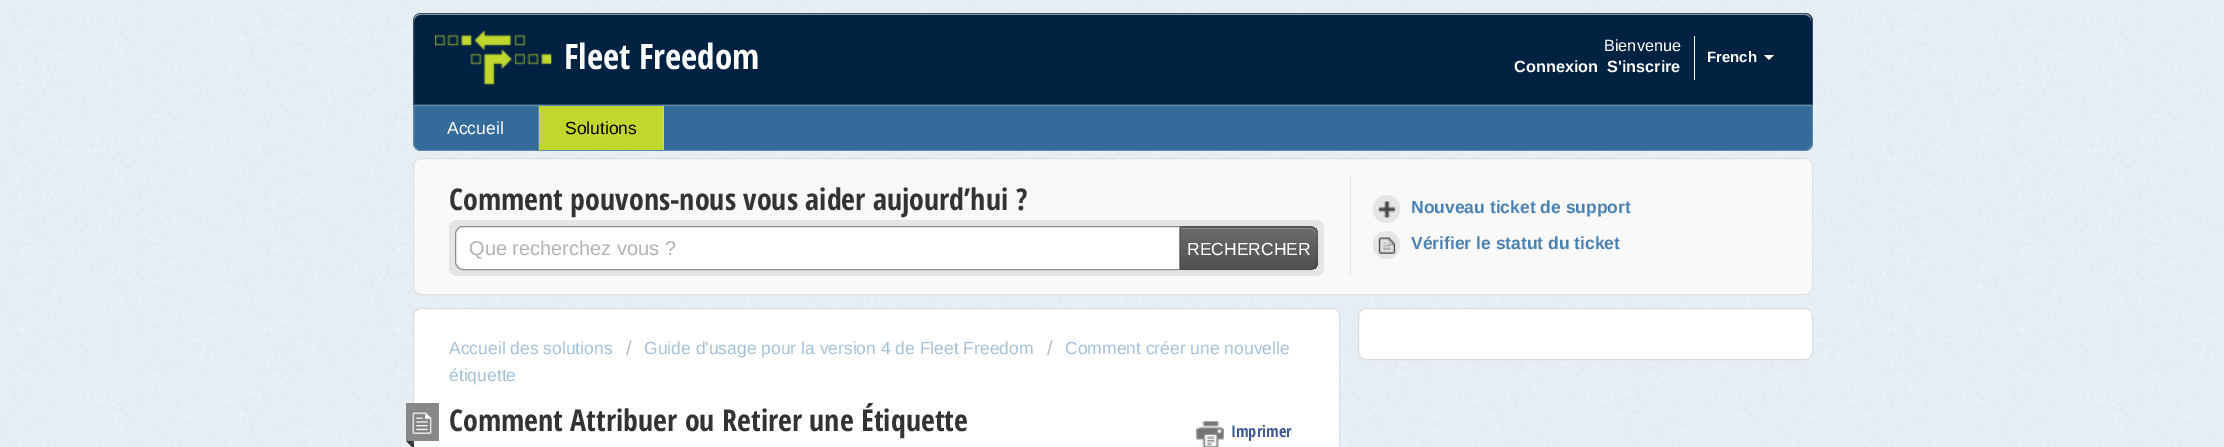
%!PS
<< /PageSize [2224 447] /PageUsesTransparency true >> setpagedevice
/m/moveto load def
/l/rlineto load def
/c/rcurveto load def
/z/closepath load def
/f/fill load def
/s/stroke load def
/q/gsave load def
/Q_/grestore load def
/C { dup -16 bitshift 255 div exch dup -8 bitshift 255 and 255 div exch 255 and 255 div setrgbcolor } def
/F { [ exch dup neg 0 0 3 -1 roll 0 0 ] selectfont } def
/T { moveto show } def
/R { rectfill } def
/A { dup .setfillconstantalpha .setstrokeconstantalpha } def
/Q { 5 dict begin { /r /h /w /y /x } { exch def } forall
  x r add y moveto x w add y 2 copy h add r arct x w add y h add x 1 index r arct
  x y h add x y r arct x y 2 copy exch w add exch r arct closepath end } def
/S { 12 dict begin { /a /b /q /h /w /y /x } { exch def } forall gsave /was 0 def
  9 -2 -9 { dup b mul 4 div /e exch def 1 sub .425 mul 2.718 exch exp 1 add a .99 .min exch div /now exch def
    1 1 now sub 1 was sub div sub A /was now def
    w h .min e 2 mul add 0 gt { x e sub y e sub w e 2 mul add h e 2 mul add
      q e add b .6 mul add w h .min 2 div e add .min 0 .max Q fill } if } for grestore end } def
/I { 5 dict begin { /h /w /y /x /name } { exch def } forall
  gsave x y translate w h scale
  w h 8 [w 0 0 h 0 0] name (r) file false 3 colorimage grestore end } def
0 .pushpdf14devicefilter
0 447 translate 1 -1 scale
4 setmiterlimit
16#E8F1F8 C
0 0 2224 447 R
(1.rgb) 0 0 2224 447 I
16#002242 C
421 13 m 1384 0 l 4.5 0 8 3.5 8 8 c 0 84 l -1400 0 l 0 -84 l 0 -4.5 3.5 -8 8 -8 c z f
16#8091A1 C
420 15 m 1385 0 l 3 0 6 3 6 6 c 0 -4 -2 -7 -6 -7 c -1385 0 l -4 0 -6 3 -6 7 c 0 -3 3 -6 6 -6 c z f
0.2 A
16#FFFFFF C
421 13.5 m 1384 0 l 4 0 7.5 3.5 7.5 7.5 c 0 83.5 l -1399 0 l 0 -83.5 l 0 -4 3.5 -7.5 7.5 -7.5 c z s
1 A
(2.rgb) 435 30 117 56 I
/OpenSansCondensed-Bold 35 F
(Fleet Freedom) 564 69 T
/LiberationSans-Regular 16.25 F
(Bienvenue) 1604 51 T
1694 36 1 44 R
/LiberationSans-Bold 15 F
(French) 1707 62 T
1764 55 m 10 0 l -5 5 l z f
/LiberationSans-Bold 16.25 F
(Connexion) 1514 72 T
(S'inscrire) 1607 72 T
16#356B9A C
413 105 m 1400 0 l 0 38 l 0 4.5 -3.5 8 -8 8 c -1384 0 l -4.5 0 -8 -3.5 -8 -8 c z f
0.2 A
16#FFFFFF C
413.5 105.5 m 1399 0 l 0 37.5 l 0 4 -3.5 7.5 -7.5 7.5 c -1384 0 l -4 0 -7.5 -3.5 -7.5 -7.5 c z s
1 A
16#5D89AE C
538 106 1 44 R
/LiberationSans-Regular 17.5 F
16#FFFFFF C
(Accueil) 447 134 T
16#C1D72E C
539 106 124 44 R
16#CDDF58 C
663 106 1 44 R
16#000000 C
(Solutions) 565 134 T
16#F9F9F9 C
413.5 158.5 1399 136 7.5 Q q f Q_
16#E0E0E0 C
s
16#E5E5E5 C
1350 176 1 100 R
/OpenSansCondensed-Bold 30 F
16#333333 C
(Comment pouvons-nous vous aider aujourd’hui ?) 449 210 T
16#E5E5E5 C
449 220 875 56 8 Q f
16#FFFFFF C
463 226.5 m 716.5 0 l 0 43 l -716.5 0 l -4 0 -7.5 -3.5 -7.5 -7.5 c 0 -28 l 0 -4 3.5 -7.5 7.5 -7.5 c z q f Q_
16#8C8C8C C
s
/LiberationSans-Regular 20 F
16#B2B2B2 C
(Que recherchez vous ?) 469 255 T
16#000000 C
1180 228 138 43 8 1 .05 S
16#626060 C
1180 226 m 130 0 l 4.5 0 8 3.5 8 8 c 0 28 l 0 4.5 -3.5 8 -8 8 c -130 0 l z f
q
1180 226 m 130 0 l 4.5 0 8 3.5 8 8 c 0 28 l 0 4.5 -3.5 8 -8 8 c -130 0 l z clip newpath
q 1180 228 m 138 0 l 0 41 l -138 0 l z clip newpath
<< /ShadingType 2 /ColorSpace /DeviceRGB /Coords [1249 228 1249 269] /Extend [true true] /Function << /FunctionType 2 /Domain [0 1] /C0 [.424 .416 .416] /C1 [.322 .318 .318] /N 1 >> >> shfill Q_
Q_
16#898888 C
1181 229 m 129 0 l 3 0 6 3 6 6 c 0 -1 l 0 -3 -3 -6 -6 -6 c -129 0 l z f
0.1 A
16#000000 C
1180 226 m 132 0 l 3 2 l -1 2 l -3 -2 l -129 0 l z f
1317.5 265 m -.5 1 -1 2 -2 3 c -1 -1 l 1 -1.5 1.5 -3 1.5 -5 c 0 -28 l 0 -2 -.5 -3.5 -2 -4.5 c 1.5 -1 l 1 1 1.5 2 2 3 c z f
0.25 A
1310 270 m 2 0 4 -1 5 -2 c -1 -1 l -1 1 -2 2 -4 2 c -129 0 l -1 1 l z f
0.1 A
1181 228 m 1 0 l -2 -2 l 0 44 l 1 -1 l z f
/LiberationSans-Regular 17.5 F
1 A
16#FFFFFF C
(RECHERCHER) 1187 255 T
16#E5E5E5 C
1373 195 27 28 13.5 Q f
(3.rgb) 1377 200 19 18 I
/LiberationSans-Bold 17.5 F
16#4982B2 C
(Nouveau ticket de support) 1411 213 T
16#E5E5E5 C
1373 231 27 28 13.5 Q f
(4.rgb) 1377 236 19 18 I
16#4982B2 C
(Vérifier le statut du ticket) 1411 249 T
16#FFFFFF C
1358.5 308.5 454 51 7.5 Q q f Q_
16#DCDCDC C
s
16#FFFFFF C
413.5 308.5 926 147 7.5 Q q f Q_
16#DCDCDC C
s
/LiberationSans-Regular 17.5 F
16#A4C1D9 C
(Accueil des solutions) 449 354 T
/LiberationSans-Regular 20 F
16#BBBBBB C
(/) 626 355 T
/LiberationSans-Regular 17.5 F
16#A4C1D9 C
(Guide d'usage pour la version 4 de Fleet Freedom) 644 354 T
/LiberationSans-Regular 20 F
16#BBBBBB C
(/) 1047 355 T
/LiberationSans-Regular 17.5 F
16#A4C1D9 C
(Comment créer une nouvelle) 1065 354 T
(étiquette) 449 381 T
16#888888 C
406 403 33 38 R
(5.rgb) 411 411 21 23 I
16#333333 C
406 441 m 8 0 l -4 4 l z f
414 441 m 0 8 l -4 -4 l z f
/OpenSansCondensed-Bold 30 F
(Comment Attribuer ou Retirer une Étiquette) 449 431 T
(6.rgb) 1196 421 28 26 I
/OpenSansCondensed-Bold 16.25 F
16#3B5998 C
(Imprimer) 1231 437 T
.poppdf14devicefilter showpage
